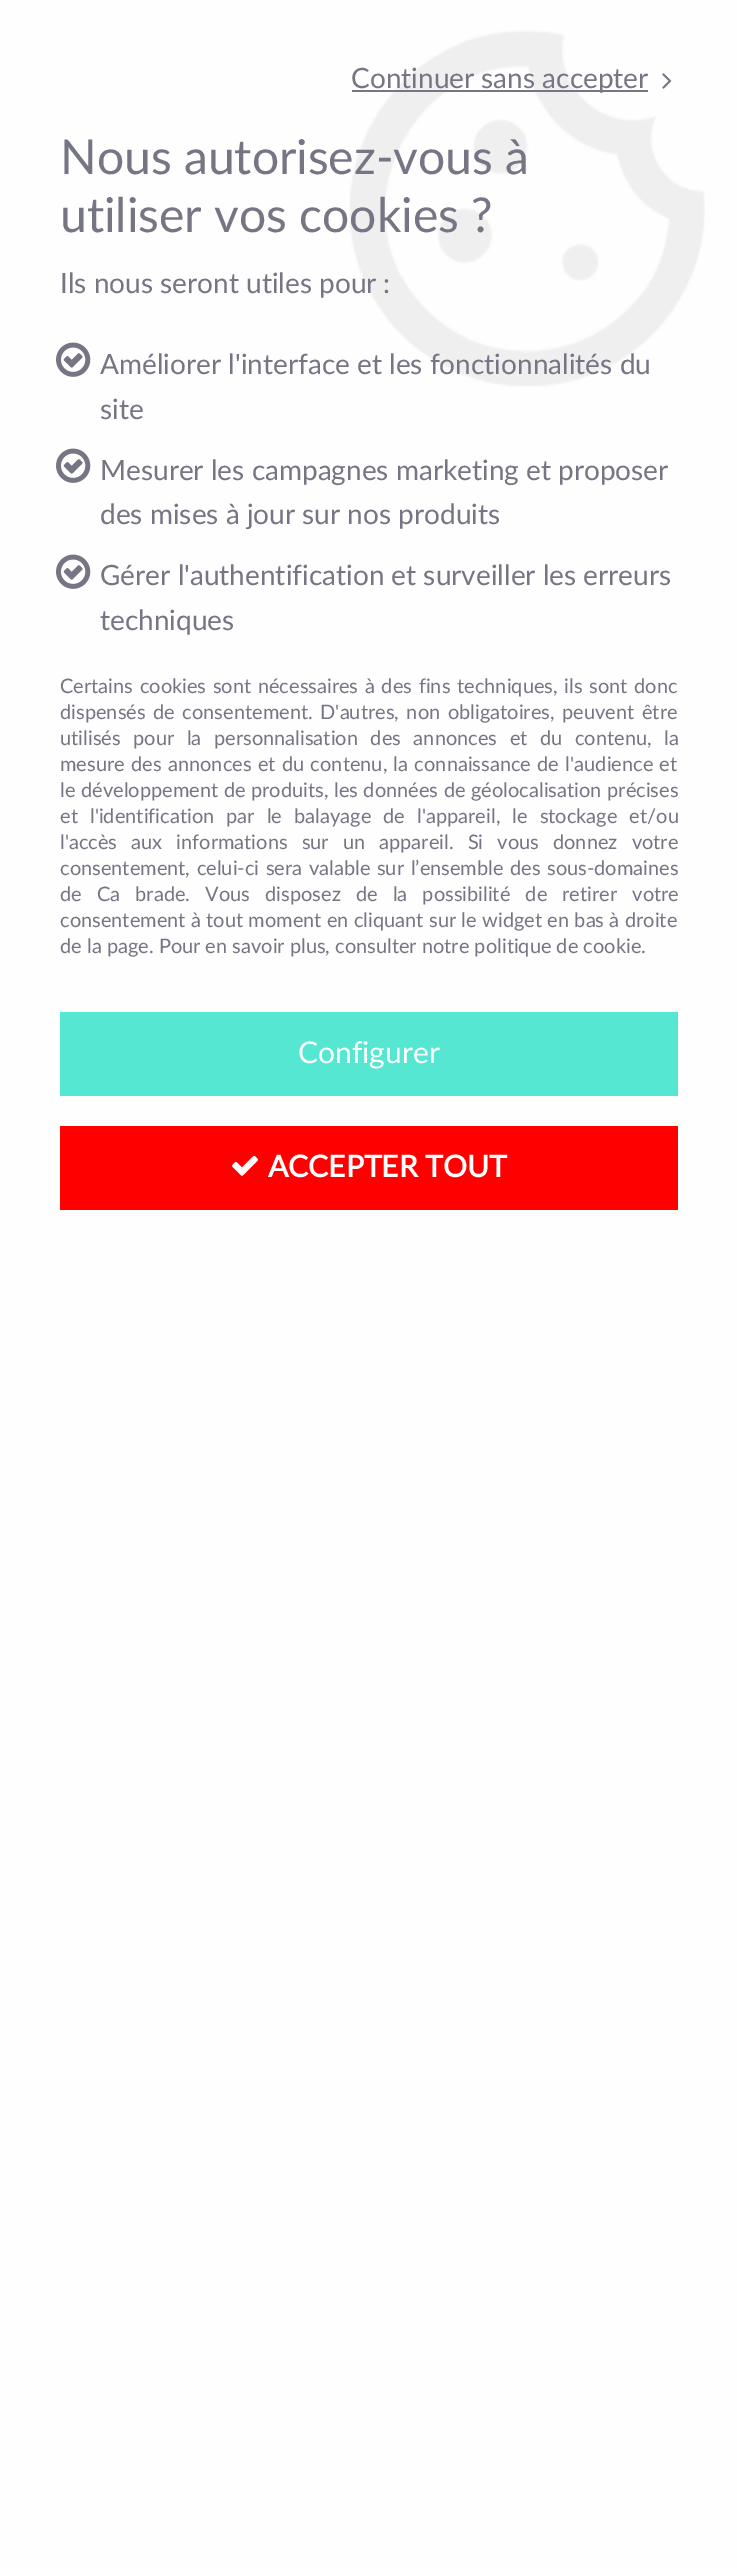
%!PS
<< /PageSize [737 2568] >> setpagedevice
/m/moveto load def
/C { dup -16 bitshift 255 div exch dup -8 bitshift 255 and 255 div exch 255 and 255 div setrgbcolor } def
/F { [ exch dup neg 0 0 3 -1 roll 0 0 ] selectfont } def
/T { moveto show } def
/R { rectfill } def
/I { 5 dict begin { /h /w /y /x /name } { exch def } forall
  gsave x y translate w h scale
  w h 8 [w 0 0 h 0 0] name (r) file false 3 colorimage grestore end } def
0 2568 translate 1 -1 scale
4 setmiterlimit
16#FEFEFE C
0 0 737 2568 R
(1.rgb) 349 30 356 357 I
16#757584 C
352 90 296 2 R
/Lato-Regular 28 F
(Continuer sans accepter) 351 88 T
(2.rgb) 662 73 10 16 I
/Lato-Regular 48 F
(Nous autorisez-vous à) 60 174 T
(utiliser vos cookies ?) 60 232 T
/Lato-Regular 28 F
(Ils nous seront utiles pour :) 60 293 T
(3.rgb) 56 342 35 35 I
(Améliorer l'interface et les fonctionnalités du) 100 374 T
(site) 100 419 T
(3.rgb) 56 448 35 35 I
(Mesurer les campagnes marketing et proposer) 100 480 T
(des mises à jour sur nos produits) 100 524 T
(3.rgb) 56 554 35 35 I
(Gérer l'authentification et surveiller les erreurs) 100 585 T
(techniques) 100 630 T
/Lato-Regular 20 F
60 693 m 1.6 0 32 (Certains cookies sont nécessaires à des fins techniques, ils sont donc) widthshow
60 719 m 2.5 0 32 (dispensés de consentement. D'autres, non obligatoires, peuvent être) widthshow
60 745 m 7.5 0 32 (utilisés pour la personnalisation des annonces et du contenu, la) widthshow
60 771 m 1.25 0 32 (mesure des annonces et du contenu, la connaissance de l'audience et) widthshow
60 797 m .5 0 32 (le développement de produits, les données de géolocalisation précises) widthshow
60 823 m 7 0 32 (et l'identification par le balayage de l'appareil, le stockage et/ou) widthshow
60 849 m 9 0 32 (l'accès aux informations sur un appareil. Si vous donnez votre) widthshow
60 875 m 1.5 0 32 (consentement, celui-ci sera valable sur l’ensemble des sous-domaines) widthshow
60 901 m 10 0 32 (de Ca brade. Vous disposez de la possibilité de retirer votre) widthshow
60 927 m .25 0 32 (consentement à tout moment en cliquant sur le widget en bas à droite) widthshow
(de la page. Pour en savoir plus, consulter notre politique de cookie.) 60 953 T
16#56E7D2 C
60 1012 618 84 R
/Lato-Regular 30 F
16#FFFFFF C
(Configurer) 298 1063 T
16#FF0000 C
60 1126 618 84 R
(4.rgb) 232 1155 26 21 I
/Lato-Bold 30 F
16#FFFFFF C
(ACCEPTER TOUT) 268 1177 T
showpage
